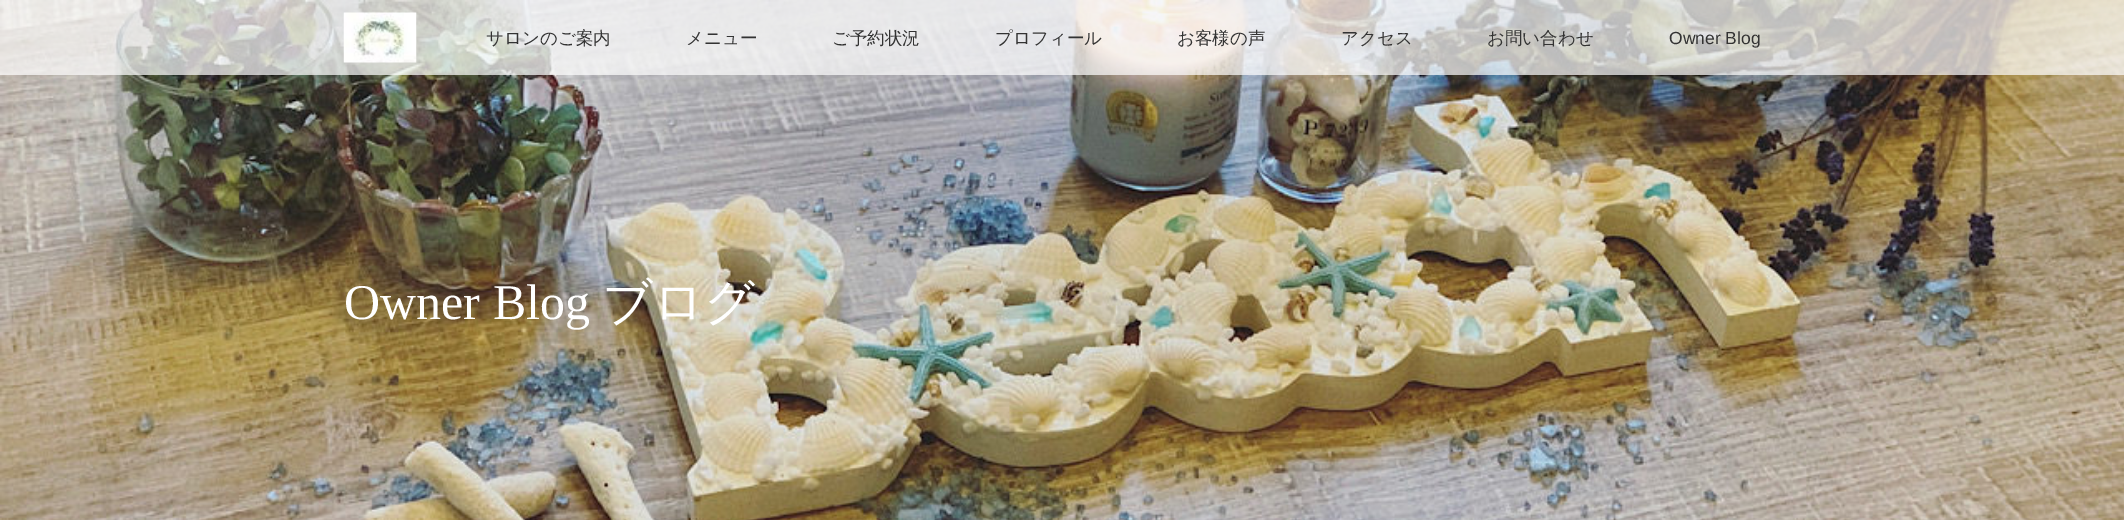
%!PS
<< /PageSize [2124 520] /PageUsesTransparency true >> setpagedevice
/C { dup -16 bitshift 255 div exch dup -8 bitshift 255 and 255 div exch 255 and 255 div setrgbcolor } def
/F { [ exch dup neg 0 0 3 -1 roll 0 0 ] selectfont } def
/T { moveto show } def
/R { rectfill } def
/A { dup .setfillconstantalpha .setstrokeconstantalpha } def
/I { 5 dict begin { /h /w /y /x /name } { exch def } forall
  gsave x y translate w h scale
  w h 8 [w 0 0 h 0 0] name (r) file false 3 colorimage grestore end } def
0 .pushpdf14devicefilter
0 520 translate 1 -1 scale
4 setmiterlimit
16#FFFFFF C
0 0 2124 520 R
(2.rgb) 0 0 2124 520 I
0.7 A
0 0 2124 75 R
1 A
(1.rgb) 343 12 74 51 I
/WenQuanYiZenHei-Medium 17.5 F
16#333333 C
(サロンのご案内) 486 44 T
(メニュー) 686 44 T
(ご予約状況) 832 44 T
(プロフィール) 995 44 T
(お客様の声) 1177 44 T
(アクセス) 1341 44 T
(お問い合わせ) 1487 44 T
/LiberationSans-Regular 17.5 F
(Owner Blog) 1669 44 T
/LiberationSerif-Regular 50 F
16#FFFFFF C
(Owner Blog) 344 319 T
/WenQuanYiZenHei-Medium 50 F
(ブログ) 602 319 T
.poppdf14devicefilter showpage
